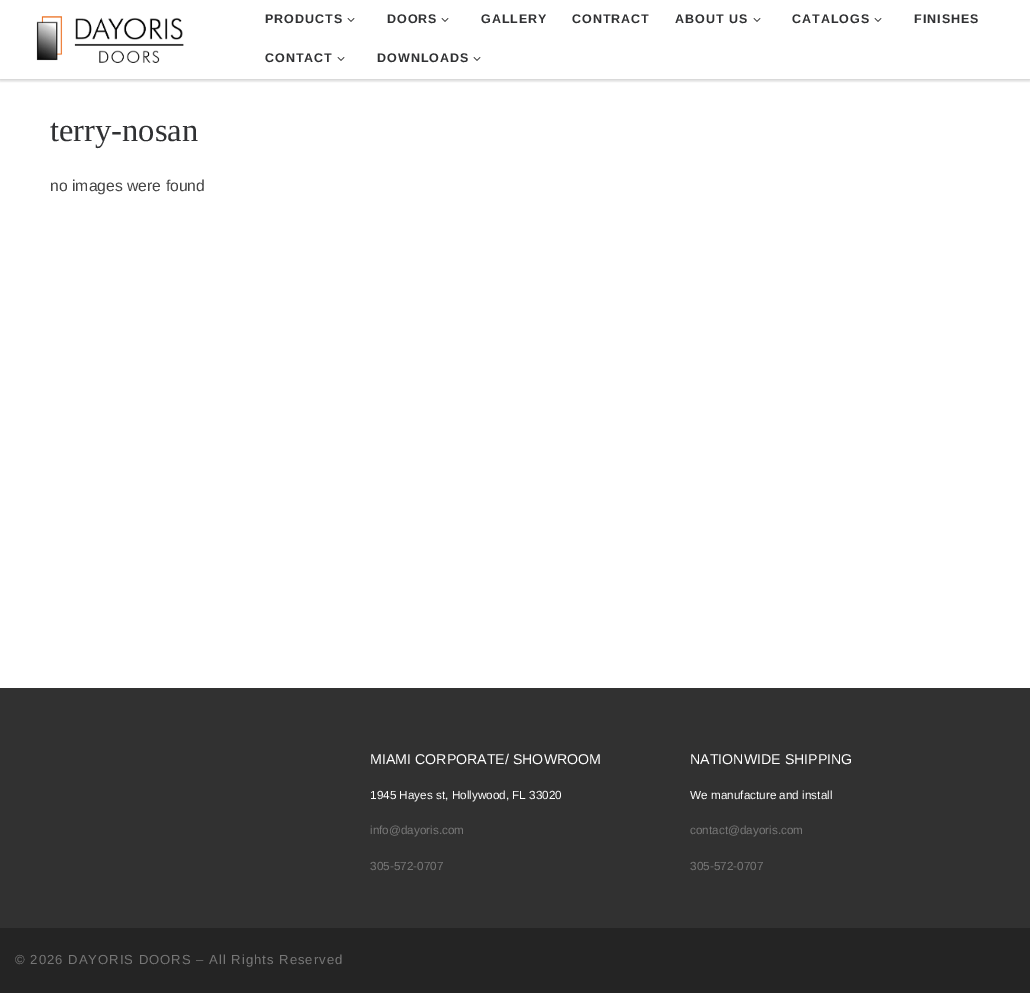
%!PS
<< /PageSize [1030 993] /PageUsesTransparency true >> setpagedevice
/m/moveto load def
/q/gsave load def
/Q_/grestore load def
/C { dup -16 bitshift 255 div exch dup -8 bitshift 255 and 255 div exch 255 and 255 div setrgbcolor } def
/F { [ exch dup neg 0 0 3 -1 roll 0 0 ] selectfont } def
/T { moveto show } def
/R { rectfill } def
/A { dup .setfillconstantalpha .setstrokeconstantalpha } def
/Q { 5 dict begin { /r /h /w /y /x } { exch def } forall
  x r add y moveto x w add y 2 copy h add r arct x w add y h add x 1 index r arct
  x y h add x y r arct x y 2 copy exch w add exch r arct closepath end } def
/S { 12 dict begin { /a /b /q /h /w /y /x } { exch def } forall gsave /was 0 def
  9 -2 -9 { dup b mul 4 div /e exch def 1 sub .425 mul 2.718 exch exp 1 add a .99 .min exch div /now exch def
    1 1 now sub 1 was sub div sub A /was now def
    w h .min e 2 mul add 0 gt { x e sub y e sub w e 2 mul add h e 2 mul add
      q e add b .6 mul add w h .min 2 div e add .min 0 .max Q fill } if } for grestore end } def
/I { 5 dict begin { /h /w /y /x /name } { exch def } forall
  gsave x y translate w h scale
  w h 8 [w 0 0 h 0 0] name (r) file false 3 colorimage grestore end } def
0 .pushpdf14devicefilter
0 993 translate 1 -1 scale
4 setmiterlimit
16#FFFFFF C
0 0 1030 993 R
q
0 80 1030 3 rectclip
16#666666 C
0 2 1030 80 0 1 .08 S
Q_
16#EFEFEF C
0 79 1030 1 R
q
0 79 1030 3 rectclip
16#000000 C
0 0 1030 79 0 2.5 .2 S
Q_
(1.rgb) 36 16 148 47 I
/LiberationSans-Bold 12.5 F
16#303133 C
265 23 m 1 0 (PRODUCTS) ashow
(2.rgb) 347 18 8 4 I
387 23 m 1 0 (DOORS) ashow
(2.rgb) 441 18 8 4 I
481 23 m 1 0 (GALLERY) ashow
572 23 m 1 0 (CONTRACT) ashow
675 23 m 1 0 (ABOUT US) ashow
(2.rgb) 753 18 8 4 I
792 23 m 1 0 (CATALOGS) ashow
(2.rgb) 874 18 8 4 I
914 23 m 1 0 (FINISHES) ashow
265 62 m 1 0 (CONTACT) ashow
(2.rgb) 337 57 8 4 I
377 62 m 1 0 (DOWNLOADS) ashow
(2.rgb) 473 57 8 4 I
/LiberationSerif-Regular 32.5 F
(terry-nosan) 50 141 T
/LiberationSans-Regular 15.75 F
16#444444 C
(no images were found) 50 191 T
16#313131 C
0 688 1030 240 R
/LiberationSans-Regular 14.2 F
16#FFFFFF C
(MIAMI CORPORATE/ SHOWROOM) 370 764 T
/LiberationSans-Regular 11.75 F
(1945 Hayes st, Hollywood, FL 33020) 370 799 T
16#777777 C
(info@dayoris.com) 370 834 T
(305-572-0707) 370 870 T
/LiberationSans-Regular 14.2 F
16#FFFFFF C
(NATIONWIDE SHIPPING) 690 764 T
/LiberationSans-Regular 11.75 F
(We manufacture and install) 690 799 T
16#777777 C
(contact@dayoris.com) 690 834 T
(305-572-0707) 690 870 T
16#242424 C
0 928 1030 65 R
/LiberationSans-Regular 13.1 F
16#777777 C
15 964 m 1 0 (© 2026 DAYORIS DOORS – All Rights Reserved) ashow
.poppdf14devicefilter showpage
